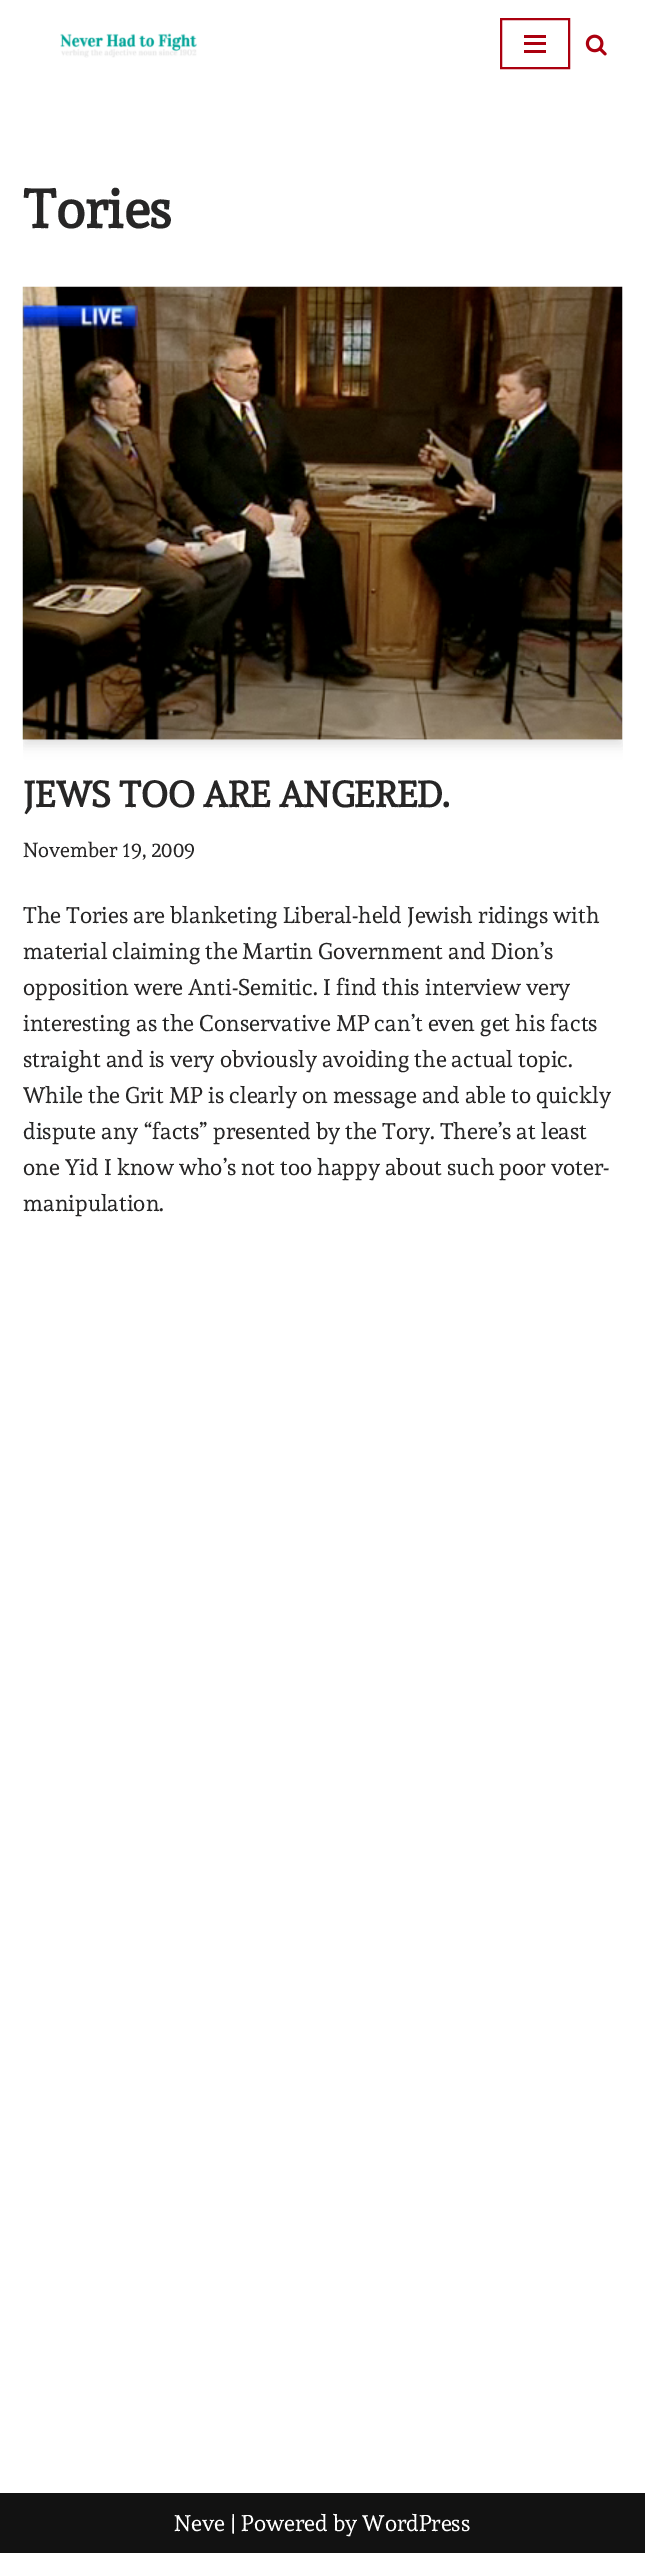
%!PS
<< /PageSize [645 2553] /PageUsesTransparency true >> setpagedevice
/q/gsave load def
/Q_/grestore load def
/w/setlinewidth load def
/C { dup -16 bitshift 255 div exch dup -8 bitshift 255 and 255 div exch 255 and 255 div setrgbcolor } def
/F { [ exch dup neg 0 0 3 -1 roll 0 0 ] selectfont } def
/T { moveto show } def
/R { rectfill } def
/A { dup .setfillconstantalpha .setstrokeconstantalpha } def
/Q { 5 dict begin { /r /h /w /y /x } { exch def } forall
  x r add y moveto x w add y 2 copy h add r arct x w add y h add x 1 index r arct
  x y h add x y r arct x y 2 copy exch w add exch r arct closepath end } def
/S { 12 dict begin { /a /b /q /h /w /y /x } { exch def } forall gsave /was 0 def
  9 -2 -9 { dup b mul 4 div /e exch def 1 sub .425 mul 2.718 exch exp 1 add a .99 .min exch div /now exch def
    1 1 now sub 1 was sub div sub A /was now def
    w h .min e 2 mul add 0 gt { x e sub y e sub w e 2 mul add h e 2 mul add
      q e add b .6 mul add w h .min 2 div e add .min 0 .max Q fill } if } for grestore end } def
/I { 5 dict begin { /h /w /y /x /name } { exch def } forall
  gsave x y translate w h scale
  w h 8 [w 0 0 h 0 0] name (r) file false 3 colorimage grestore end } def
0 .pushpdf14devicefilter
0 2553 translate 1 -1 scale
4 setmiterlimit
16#FFFFFF C
0 0 645 2553 R
(1.rgb) 60 33 137 25 I
16#AB000F C
2 w
501 19 68 49 rectstroke
524 35 22 3 R
524 42 22 3 R
524 50 22 3 R
(2.rgb) 585 34 22 22 I
/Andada-Bold 54 F
16#272626 C
(Tories) 23 228 T
q
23 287 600 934 rectclip
16#000000 C
23 293 600 453 0 6 .1 S
Q_
16#000000 C
30 299 585 438 0 4.5 .1 S
(3.rgb) 22 286 601 454 I
/Andada-Bold 36 F
16#272626 C
(JEWS TOO ARE ANGERED.) 23 807 T
/Andada-Regular 20.25 F
(November 19, 2009) 23 857 T
q
23 287 600 934 rectclip
/Andada-Regular 22.5 F
(The Tories are blanketing Liberal-held Jewish ridings with) 23 923 T
Q_
/Andada-Regular 22.5 F
(material claiming the Martin Government and Dion’s) 23 959 T
(opposition were Anti-Semitic. I find this interview very) 23 995 T
(interesting as the Conservative MP can’t even get his facts) 23 1031 T
(straight and is very obviously avoiding the actual topic.) 23 1067 T
(While the Grit MP is clearly on message and able to quickly) 23 1103 T
(dispute any “facts” presented by the Tory. There’s at least) 23 1139 T
(one Yid I know who’s not too happy about such poor voter-) 23 1175 T
(manipulation.) 23 1211 T
16#121212 C
0 2493 645 60 R
16#FFFFFF C
(Neve | Powered by WordPress) 174 2531 T
.poppdf14devicefilter showpage
